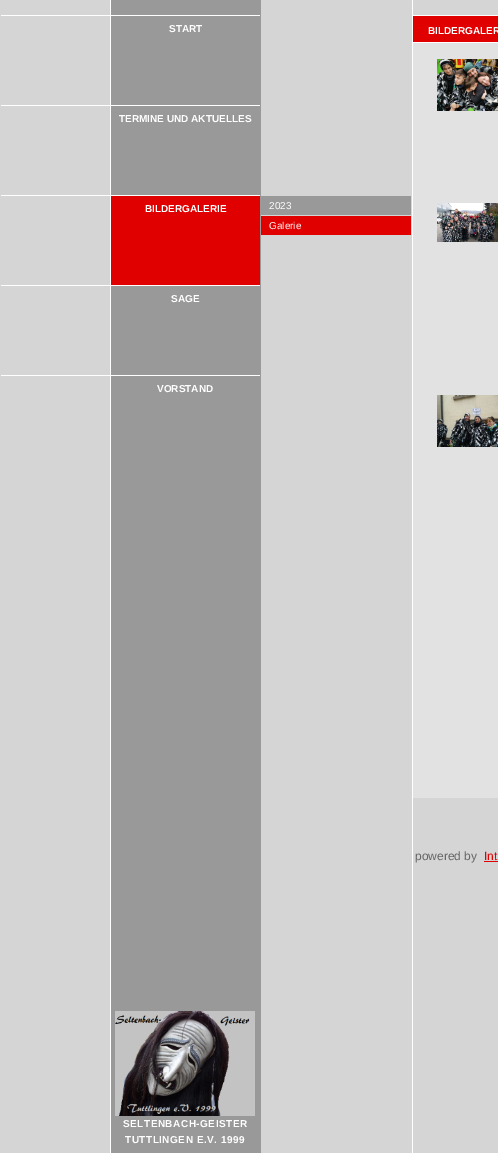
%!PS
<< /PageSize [498 1153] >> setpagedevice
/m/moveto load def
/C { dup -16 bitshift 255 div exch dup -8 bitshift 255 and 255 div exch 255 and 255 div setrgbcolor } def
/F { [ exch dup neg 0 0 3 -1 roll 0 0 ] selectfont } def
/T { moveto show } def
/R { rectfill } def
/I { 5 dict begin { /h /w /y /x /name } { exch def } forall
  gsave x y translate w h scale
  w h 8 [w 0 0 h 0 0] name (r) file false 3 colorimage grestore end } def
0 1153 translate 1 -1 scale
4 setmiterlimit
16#D5D5D5 C
0 0 498 1153 R
16#FFFFFF C
1 15 109 1 R
1 105 110 1 R
1 195 110 1 R
1 285 110 1 R
1 375 110 1 R
16#999999 C
111 0 150 1153 R
16#FFFFFF C
110 0 1 1153 R
111 15 149 1 R
/LiberationSans-Bold 10 F
(START) 169 32 T
111 105 149 1 R
(TERMINE UND AKTUELLES) 119 122 T
16#E00000 C
111 196 149 89 R
16#FFFFFF C
111 195 149 1 R
(BILDERGALERIE) 145 212 T
111 285 149 1 R
(SAGE) 171 302 T
111 375 149 1 R
(VORSTAND) 157 392 T
16#999999 C
261 196 150 19 R
/LiberationSans-Regular 10 F
16#FFFFFF C
(2023) 269 209 T
16#E00000 C
261 216 150 19 R
16#FFFFFF C
(Galerie) 269 229 T
(1.rgb) 115 1011 140 105 I
/LiberationSans-Bold 10 F
123 1127 m .5 0 (SELTENBACH-GEISTER) ashow
125 1143 m .5 0 (TUTTLINGEN E.V. 1999) ashow
412 0 1 1153 R
16#E2E2E2 C
413 43 85 755 R
16#E00000 C
413 16 85 26 R
16#FFFFFF C
413 15 85 1 R
413 42 85 1 R
(BILDERGALER) 428 34 T
(2.rgb) 437 59 61 52 I
(3.rgb) 437 203 61 39 I
(4.rgb) 437 395 61 52 I
/LiberationSans-Regular 12 F
16#666666 C
(powered by) 415 860 T
16#E00000 C
(Int) 484 860 T
484 861 14 1 R
showpage
